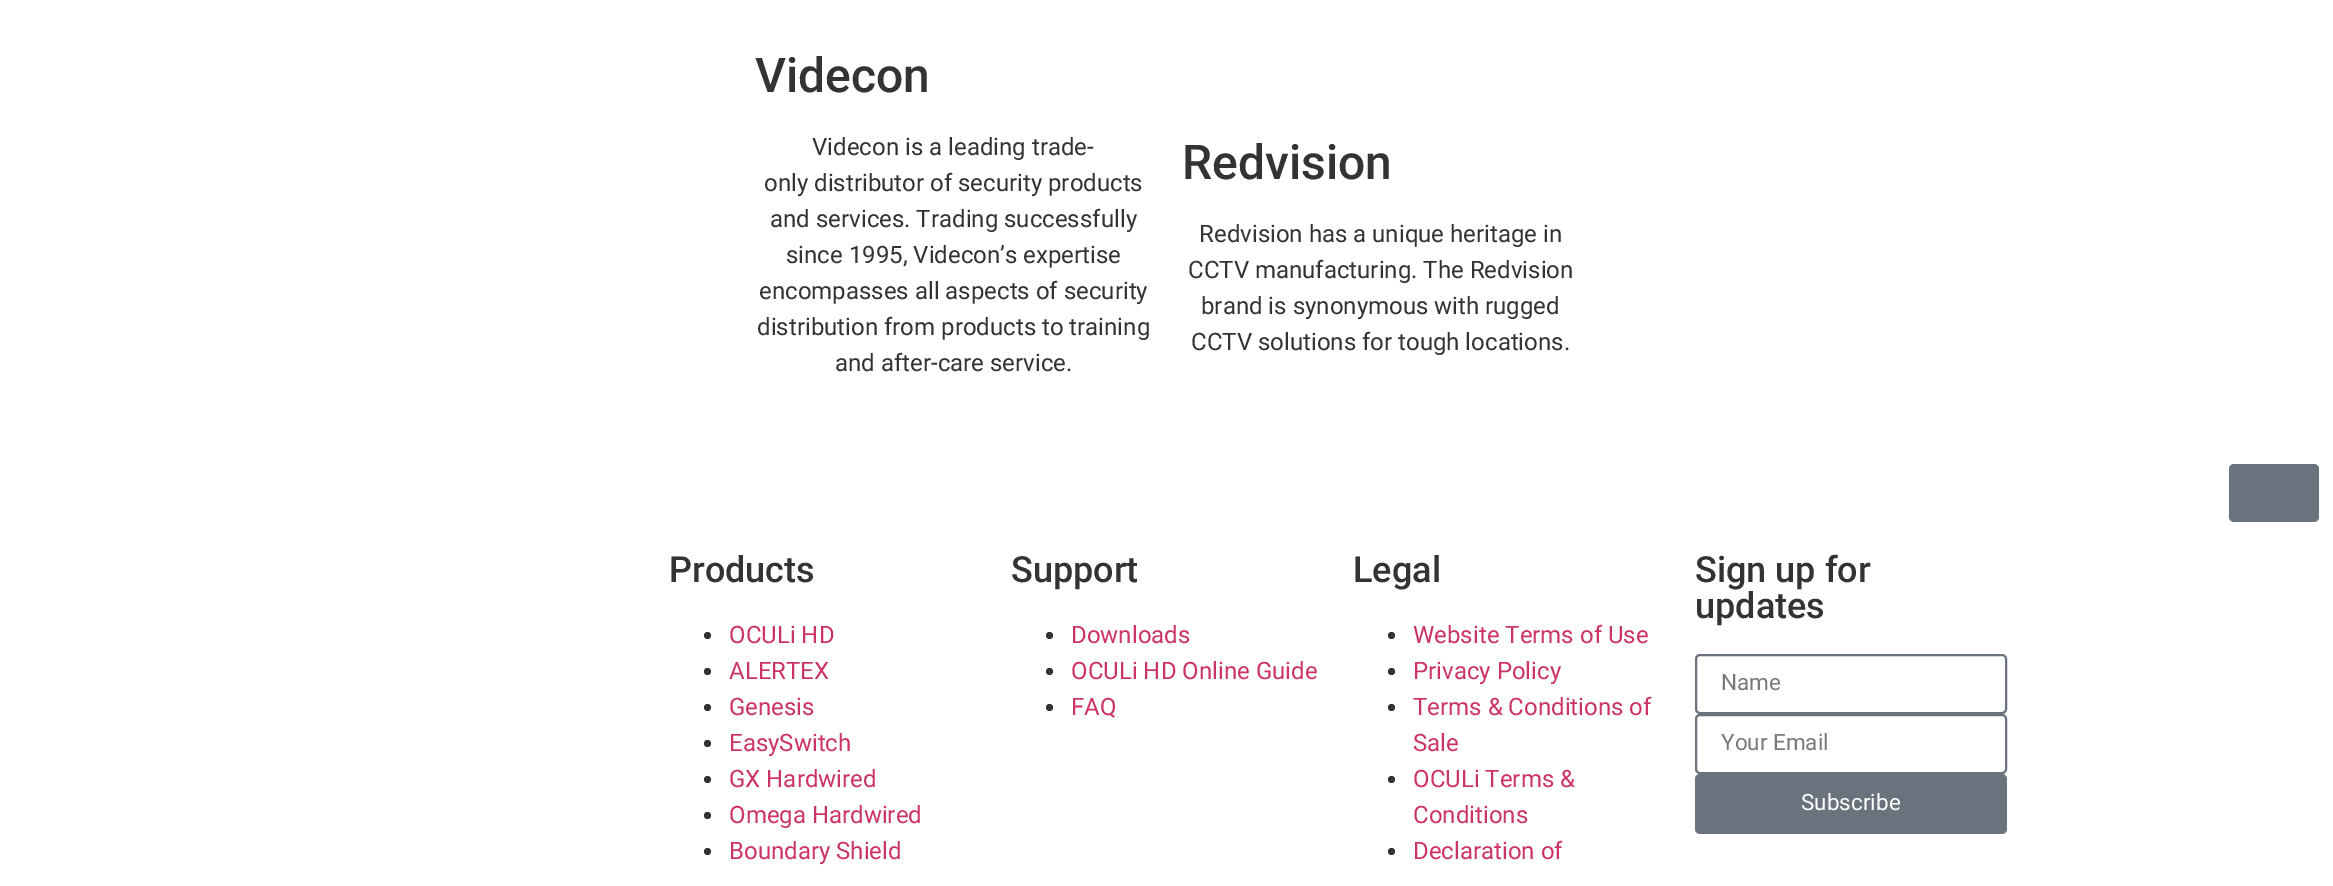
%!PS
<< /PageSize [2333 886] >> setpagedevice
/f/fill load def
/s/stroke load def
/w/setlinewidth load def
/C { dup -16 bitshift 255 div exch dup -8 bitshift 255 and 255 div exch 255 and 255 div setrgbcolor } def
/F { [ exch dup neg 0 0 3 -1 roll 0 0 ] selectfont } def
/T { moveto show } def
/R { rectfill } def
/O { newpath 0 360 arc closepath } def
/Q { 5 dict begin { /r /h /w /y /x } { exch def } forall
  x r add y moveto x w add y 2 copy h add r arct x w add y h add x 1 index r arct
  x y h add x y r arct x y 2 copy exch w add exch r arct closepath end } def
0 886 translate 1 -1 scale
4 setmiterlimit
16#FFFFFF C
0 0 2333 886 R
/Roboto-Medium 48 F
16#333333 C
(Videcon) 755 92 T
/Roboto-Regular 24 F
(Videcon is a leading trade-) 812 155 T
(only distributor of security products) 764 191 T
(and services. Trading successfully) 770 227 T
(since 1995, Videcon’s expertise) 786 263 T
(encompasses all aspects of security) 759 299 T
(distribution from products to training) 757 335 T
(and after-care service.) 835 371 T
/Roboto-Medium 48 F
(Redvision) 1182 179 T
/Roboto-Regular 24 F
(Redvision has a unique heritage in) 1199 242 T
(CCTV manufacturing. The Redvision) 1188 278 T
(brand is synonymous with rugged) 1201 314 T
(CCTV solutions for tough locations.) 1191 350 T
16#69727D C
2229 464 90 58 5 Q f
/Roboto-Medium 36 F
16#333333 C
(Products) 669 582 T
707.5 635.5 3.5 O f
/Roboto-Regular 24 F
16#CC3366 C
(OCULi HD) 729 643 T
16#333333 C
707.5 671.5 3.5 O f
16#CC3366 C
(ALERTEX) 729 679 T
16#333333 C
707.5 707.5 3.5 O f
16#CC3366 C
(Genesis) 729 715 T
16#333333 C
707.5 743.5 3.5 O f
16#CC3366 C
(EasySwitch) 729 751 T
16#333333 C
707.5 779.5 3.5 O f
16#CC3366 C
(GX Hardwired) 729 787 T
16#333333 C
707.5 815.5 3.5 O f
16#CC3366 C
(Omega Hardwired) 729 823 T
16#333333 C
707.5 851.5 3.5 O f
16#CC3366 C
(Boundary Shield) 729 859 T
/Roboto-Medium 36 F
16#333333 C
(Support) 1011 582 T
1049.5 635.5 3.5 O f
/Roboto-Regular 24 F
16#CC3366 C
(Downloads) 1071 643 T
16#333333 C
1049.5 671.5 3.5 O f
16#CC3366 C
(OCULi HD Online Guide) 1071 679 T
16#333333 C
1049.5 707.5 3.5 O f
16#CC3366 C
(FAQ) 1071 715 T
/Roboto-Medium 36 F
16#333333 C
(Legal) 1353 582 T
1391.5 635.5 3.5 O f
/Roboto-Regular 24 F
16#CC3366 C
(Website Terms of Use) 1413 643 T
16#333333 C
1391.5 671.5 3.5 O f
16#CC3366 C
(Privacy Policy) 1413 679 T
16#333333 C
1391.5 707.5 3.5 O f
16#CC3366 C
(Terms & Conditions of) 1413 715 T
(Sale) 1413 751 T
16#333333 C
1391.5 779.5 3.5 O f
16#CC3366 C
(OCULi Terms &) 1413 787 T
(Conditions) 1413 823 T
16#333333 C
1391.5 851.5 3.5 O f
16#CC3366 C
(Declaration of) 1413 859 T
/Roboto-Medium 36 F
16#333333 C
(Sign up for) 1695 582 T
(updates) 1695 618 T
16#69727D C
2 w
1696 655 310 58 4 Q s
/Roboto-Regular 22.5 F
16#797A7C C
(Name) 1721 690 T
16#69727D C
1696 715 310 58 4 Q s
16#797A7C C
(Your Email) 1721 750 T
16#69727D C
1695 774 312 60 5 Q f
16#FFFFFF C
(Subscribe) 1801 810 T
showpage
